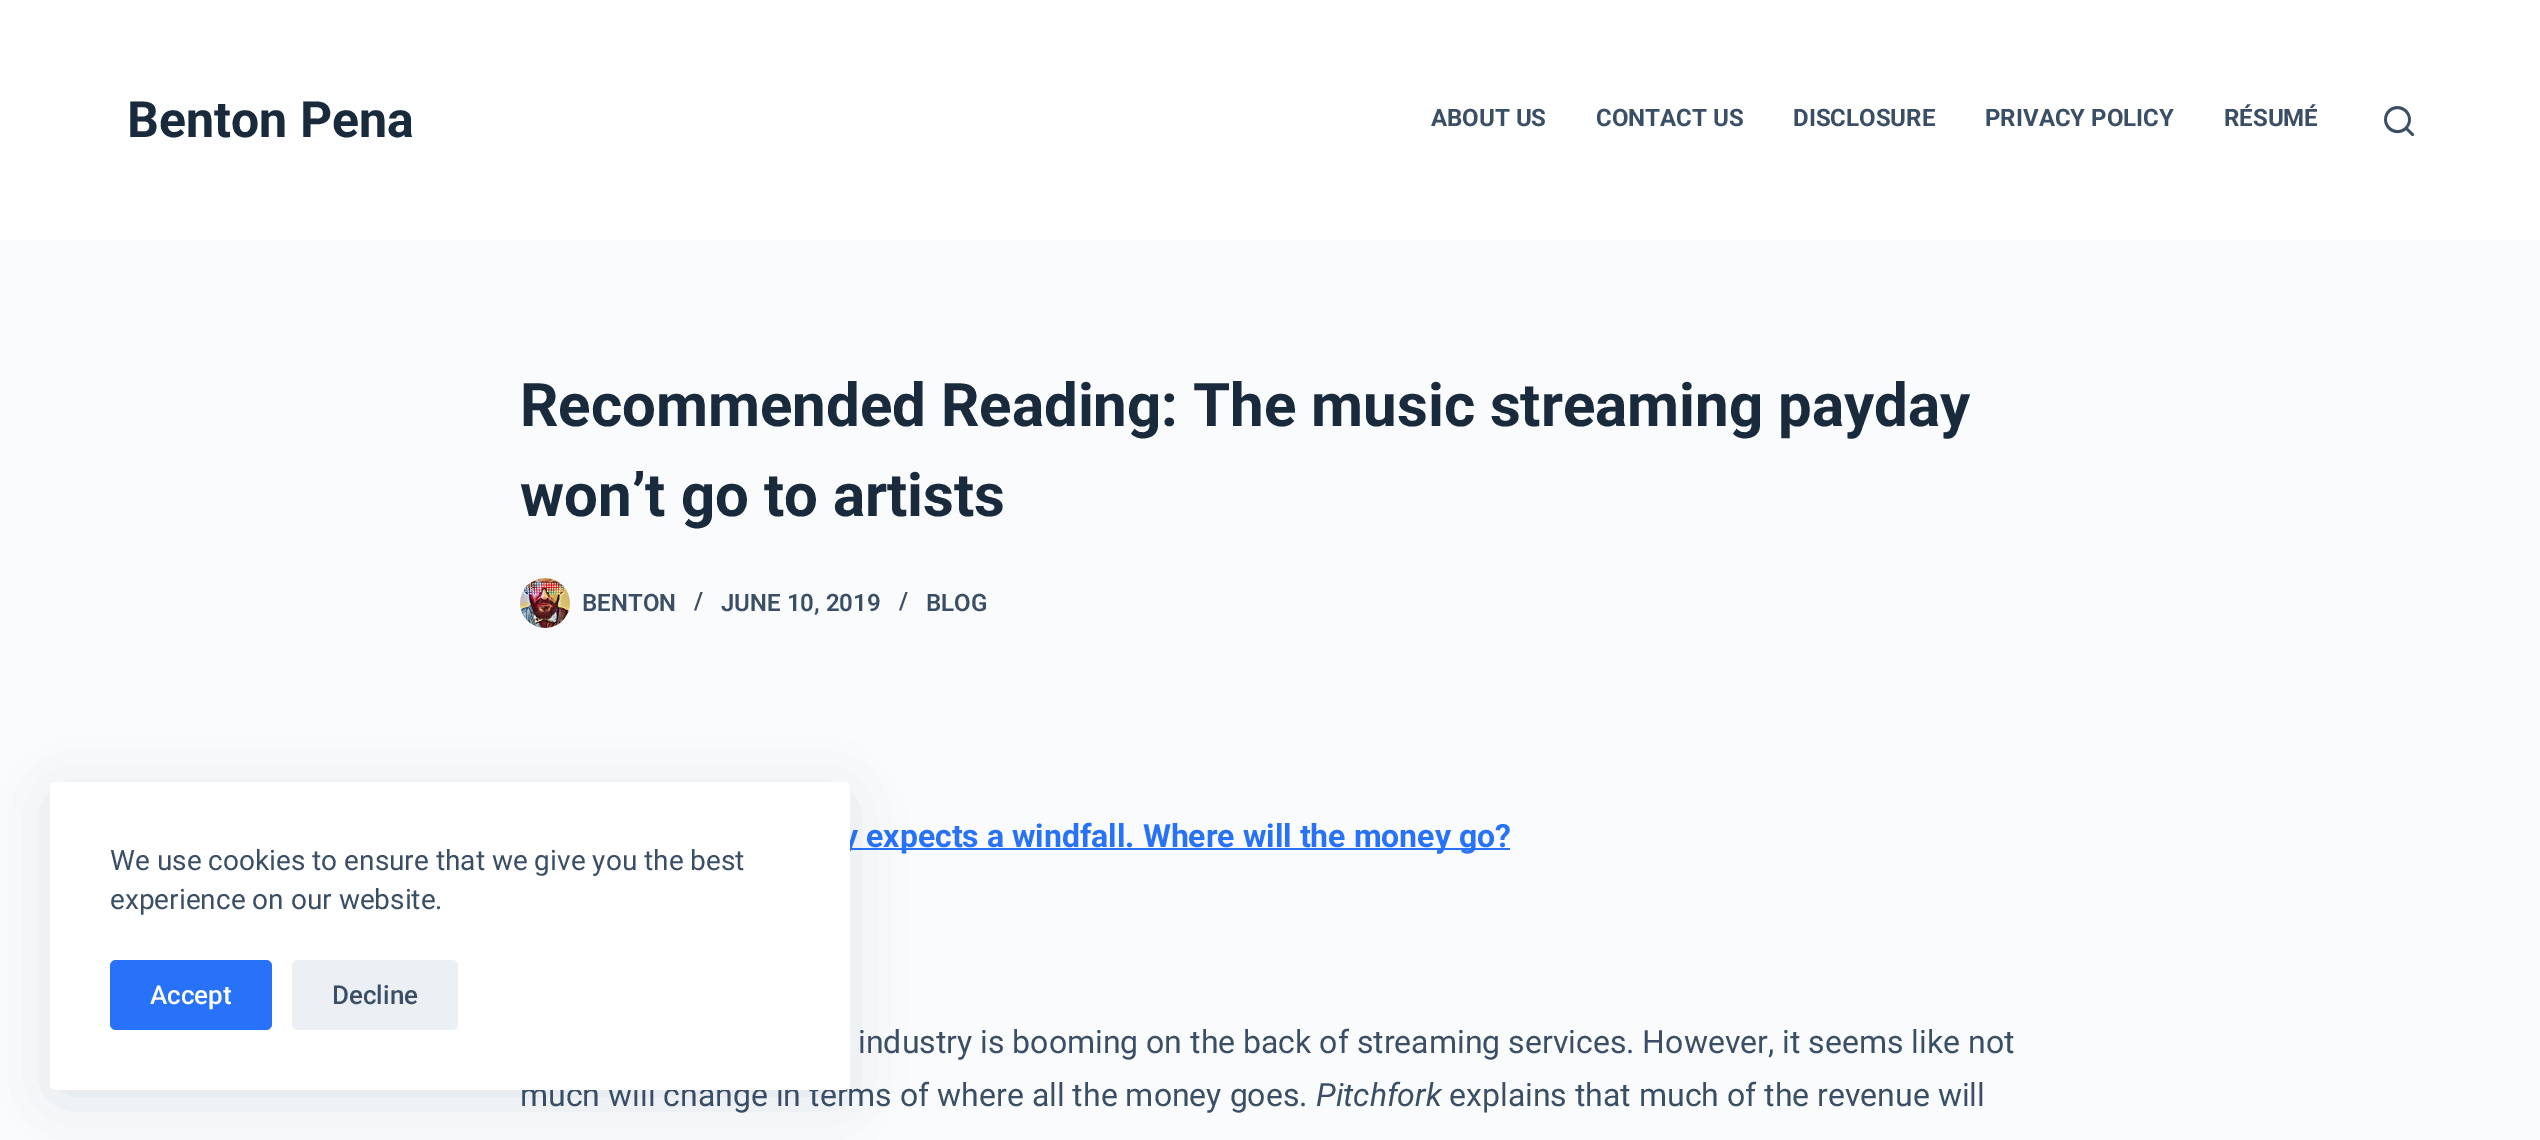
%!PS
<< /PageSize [2540 1140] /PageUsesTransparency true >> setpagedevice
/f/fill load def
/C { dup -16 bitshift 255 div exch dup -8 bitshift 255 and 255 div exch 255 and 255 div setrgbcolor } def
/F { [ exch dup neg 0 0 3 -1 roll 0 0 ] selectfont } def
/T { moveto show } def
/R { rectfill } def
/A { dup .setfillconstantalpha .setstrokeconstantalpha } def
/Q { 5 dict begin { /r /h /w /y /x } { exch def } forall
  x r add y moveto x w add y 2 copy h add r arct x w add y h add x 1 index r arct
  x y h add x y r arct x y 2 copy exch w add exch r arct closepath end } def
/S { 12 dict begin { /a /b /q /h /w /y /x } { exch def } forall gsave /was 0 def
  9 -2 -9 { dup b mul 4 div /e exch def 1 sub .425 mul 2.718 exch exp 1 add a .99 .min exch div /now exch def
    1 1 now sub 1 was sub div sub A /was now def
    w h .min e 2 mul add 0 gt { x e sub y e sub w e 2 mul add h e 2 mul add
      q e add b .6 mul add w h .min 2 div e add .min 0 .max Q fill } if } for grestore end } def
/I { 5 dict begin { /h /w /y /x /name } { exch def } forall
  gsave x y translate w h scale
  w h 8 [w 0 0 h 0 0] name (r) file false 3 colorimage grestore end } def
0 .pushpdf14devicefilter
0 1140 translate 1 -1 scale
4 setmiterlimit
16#FAFBFC C
0 0 2540 1140 R
16#FFFFFF C
0 0 2540 240 R
/Roboto-Bold 50 F
16#192A3D C
(Benton Pena) 127 137 T
/Roboto-Bold 24 F
16#3A4F66 C
(ABOUT US) 1431 126 T
(CONTACT US) 1596 126 T
(DISCLOSURE) 1793 126 T
(PRIVACY POLICY) 1985 126 T
(RÉSUMÉ) 2224 126 T
(1.rgb) 2384 106 30 30 I
/Roboto-Bold 60 F
16#192A3D C
(Recommended Reading: The music streaming payday) 520 426 T
(won’t go to artists) 520 516 T
(2.rgb) 520 578 50 50 I
/Roboto-SemiBold 24 F
16#3A4F66 C
(BENTON) 582 611 T
(/) 694 609 T
(JUNE 10, 2019) 721 611 T
(/) 899 609 T
(BLOG) 926 611 T
16#2872FA C
850 848 660 2 R
/Roboto-Bold 32 F
(y expects a windfall. Where will the money go?) 842 847 T
/Roboto-Regular 32 F
16#3A4F66 C
(industry is booming on the back of streaming services. However, it seems like not) 858 1053 T
(much will change in terms of where all the money goes.) 520 1106 T
/Roboto-Italic 32 F
(Pitchfork) 1316 1106 T
/Roboto-Regular 32 F
(explains that much of the revenue will) 1449 1106 T
16#223865 C
60 802 780 288 0 30 .15 S
16#FFFFFF C
50 782 800 308 6 Q f
/Roboto-Regular 28 F
16#3A4F66 C
(We use cookies to ensure that we give you the best) 110 870 T
(experience on our website.) 110 909 T
16#2872FA C
110 960 162 70 6 Q f
/Roboto-Medium 26 F
16#FFFFFF C
(Accept) 150 1004 T
16#ECEFF3 C
292 960 166 70 6 Q f
16#3A4F66 C
(Decline) 332 1004 T
.poppdf14devicefilter showpage
